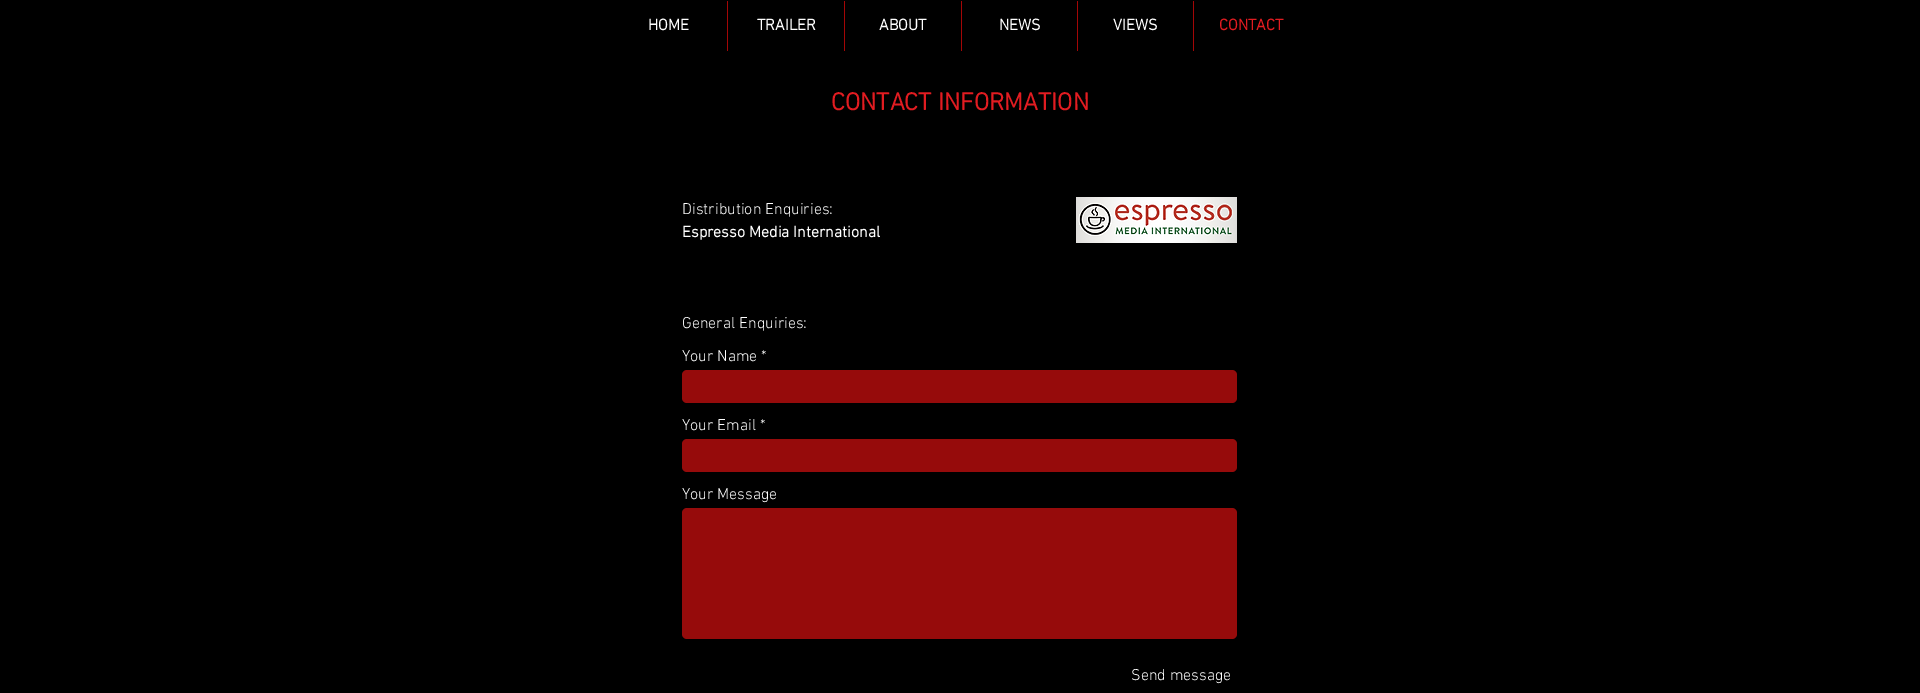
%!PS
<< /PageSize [1920 693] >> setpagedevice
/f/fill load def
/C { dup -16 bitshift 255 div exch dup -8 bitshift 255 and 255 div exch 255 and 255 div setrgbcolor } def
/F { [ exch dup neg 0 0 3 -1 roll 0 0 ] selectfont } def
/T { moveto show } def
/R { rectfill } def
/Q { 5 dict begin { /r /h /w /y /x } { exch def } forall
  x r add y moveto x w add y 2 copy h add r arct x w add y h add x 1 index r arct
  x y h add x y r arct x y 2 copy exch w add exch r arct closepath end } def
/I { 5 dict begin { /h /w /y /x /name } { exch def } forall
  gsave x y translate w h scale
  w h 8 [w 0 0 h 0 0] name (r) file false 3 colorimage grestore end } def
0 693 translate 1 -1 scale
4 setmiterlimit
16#000000 C
0 0 1920 693 R
/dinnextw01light-Bold 16 F
16#FFFFFF C
(HOME) 648 30 T
16#A40606 C
727 1 1 50 R
16#FFFFFF C
(TRAILER) 757 30 T
16#A40606 C
844 1 1 50 R
16#FFFFFF C
(ABOUT) 879 30 T
16#A40606 C
961 1 1 50 R
16#FFFFFF C
(NEWS) 999 30 T
16#A40606 C
1077 1 1 50 R
16#FFFFFF C
(VIEWS) 1113 30 T
16#A40606 C
1193 1 1 50 R
16#E21C21 C
(CONTACT) 1219 30 T
/dinnextw01light-Bold 25 F
(CONTACT INFORMATION) 831 110 T
/dinnextw01light-Light 16 F
16#FFFFFF C
(Distribution Enquiries:) 682 214 T
/dinnextw01light-Bold 16 F
(Espresso Media International) 682 237 T
(1.rgb) 1076 197 161 46 I
/dinnextw01light-Light 16 F
(General Enquiries:) 682 328 T
(Your Name *) 682 361 T
16#960B0B C
682 370 555 33 5 Q f
16#FFFFFF C
(Your Email *) 682 430 T
16#960B0B C
682 439 555 33 5 Q f
16#FFFFFF C
(Your Message) 682 499 T
16#960B0B C
682 508 555 131 5 Q f
16#FFFFFF C
(Send message) 1131 680 T
showpage
